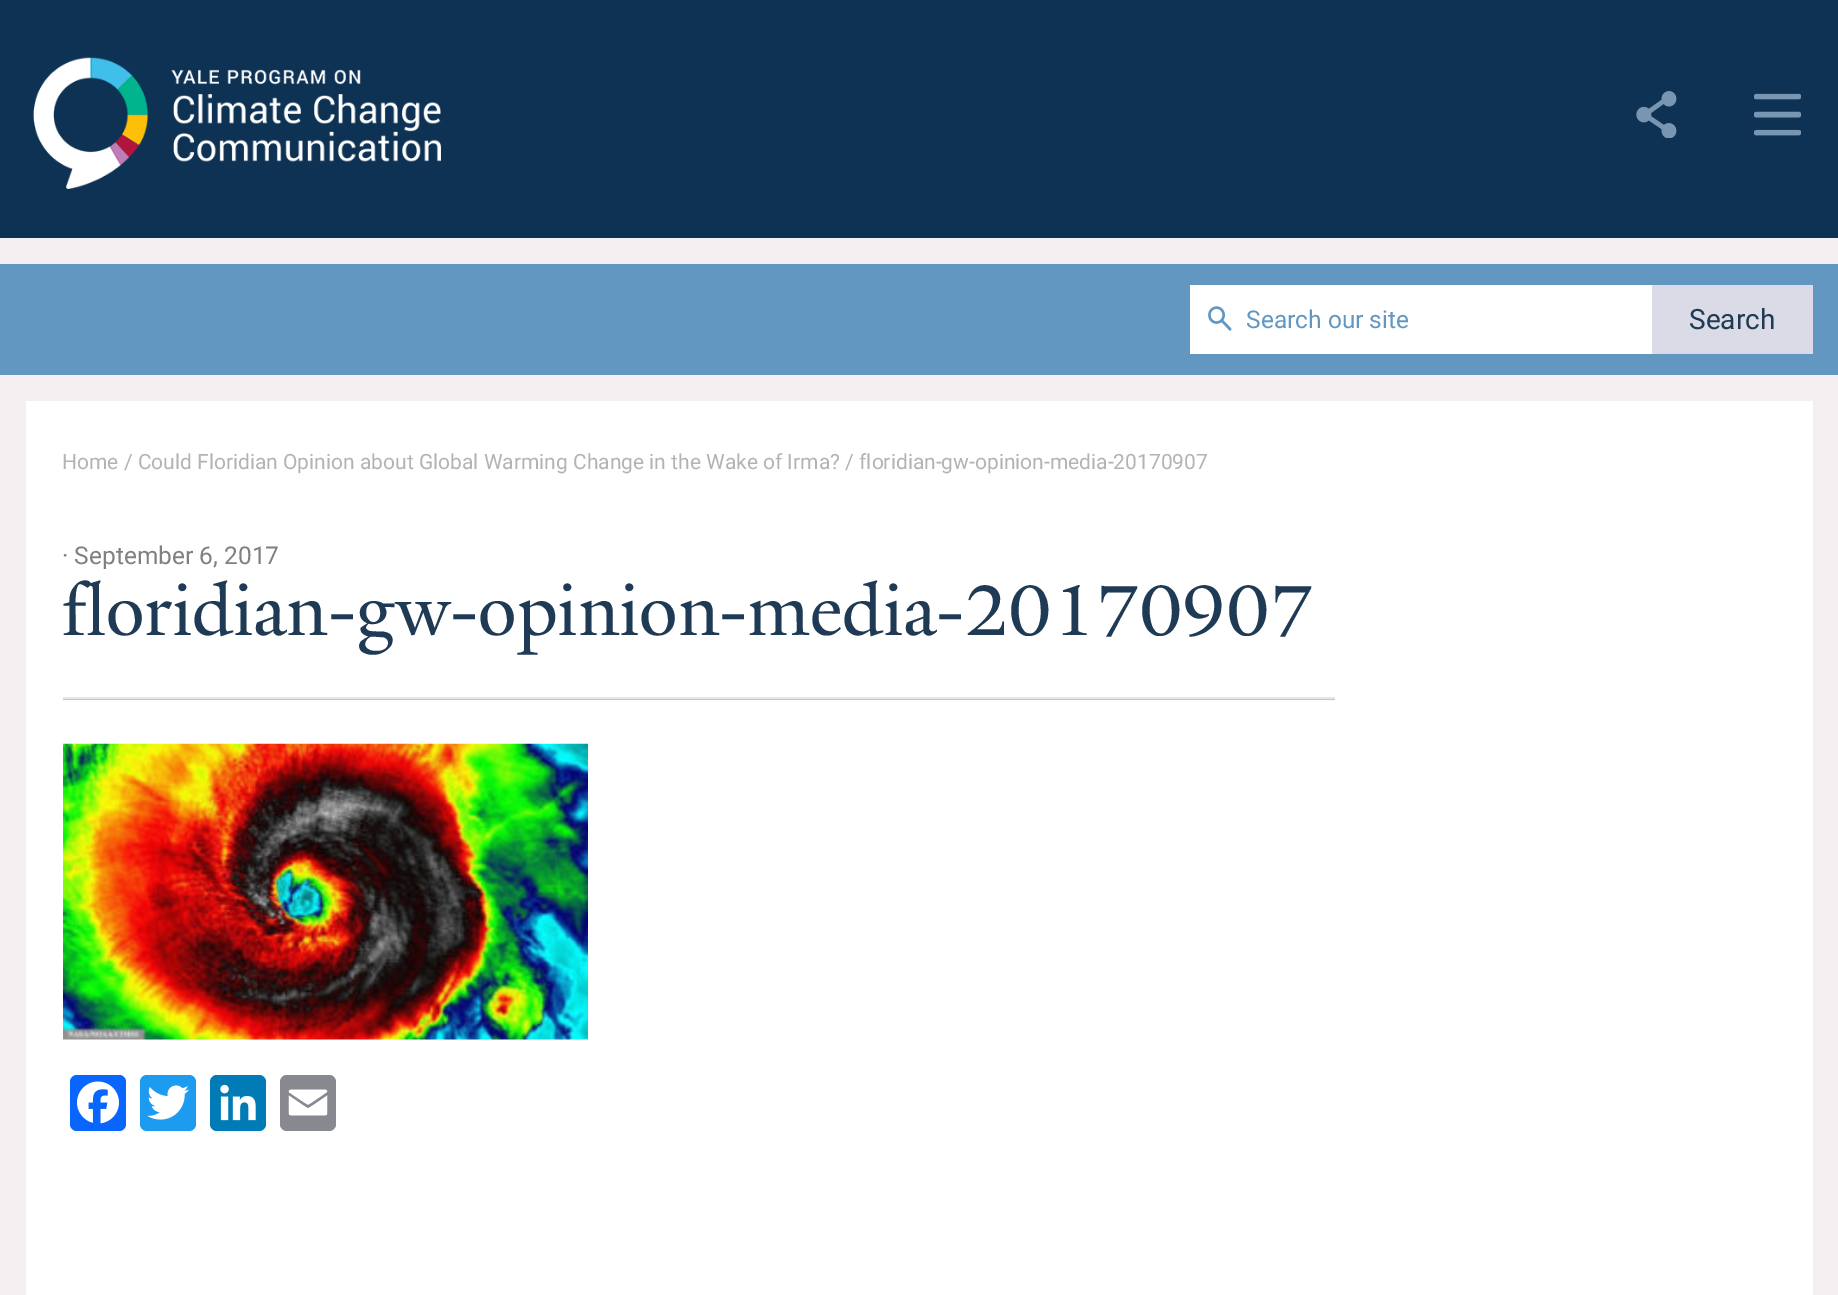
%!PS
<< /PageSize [1838 1295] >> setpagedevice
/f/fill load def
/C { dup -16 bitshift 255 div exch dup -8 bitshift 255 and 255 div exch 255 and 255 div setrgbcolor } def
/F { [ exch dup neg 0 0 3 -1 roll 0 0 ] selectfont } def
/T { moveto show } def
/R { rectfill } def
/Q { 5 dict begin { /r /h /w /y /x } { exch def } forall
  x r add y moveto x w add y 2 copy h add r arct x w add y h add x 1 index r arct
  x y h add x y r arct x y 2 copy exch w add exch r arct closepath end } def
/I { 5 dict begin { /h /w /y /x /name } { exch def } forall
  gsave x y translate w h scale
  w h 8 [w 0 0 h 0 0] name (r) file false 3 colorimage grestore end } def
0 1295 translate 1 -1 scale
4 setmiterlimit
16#F4F0F2 C
0 0 1838 1295 R
16#0E3254 C
0 0 1838 238 R
(1.rgb) 33 57 408 132 I
(2.rgb) 1636 91 41 47 I
(3.rgb) 1754 93 47 43 I
16#6297C2 C
0 264 1838 111 R
16#FFFFFF C
1190 285 462 69 R
(4.rgb) 1208 306 24 25 I
/Roboto-Regular 24.5 F
16#6297C2 C
(Search our site) 1246 328 T
16#DADBE6 C
1652 285 161 69 R
/Roboto-Regular 28 F
16#1E3A54 C
(Search) 1689 329 T
16#FFFFFF C
26 401 1787 894 R
/Roboto-Regular 21 F
16#B3B3B3 C
(Home / Could Floridian Opinion about Global Warming Change in the Wake of Irma? / floridian-gw-opinion-media-20170907) 62 469 T
/Roboto-Regular 24.5 F
16#808080 C
(· September 6, 2017) 62 564 T
/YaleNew-Regular 77 F
16#1E3A54 C
(floridian-gw-opinion-media-20170907) 62 635 T
16#C4C4C4 C
63 699 1272 1 R
16#E6E6E5 C
63 697 1272 2 R
16#FCFCFC C
63 700 1272 2 R
(5.rgb) 63 743 525 297 I
16#0866FF C
70 1075 56 56 7 Q f
(6.rgb) 77 1081 42 43 I
16#1D9BF0 C
140 1075 56 56 7 Q f
(7.rgb) 147 1085 42 35 I
16#007BB5 C
210 1075 56 56 7 Q f
(8.rgb) 220 1084 36 37 I
16#888990 C
280 1075 56 56 7 Q f
(9.rgb) 288 1089 40 27 I
showpage
